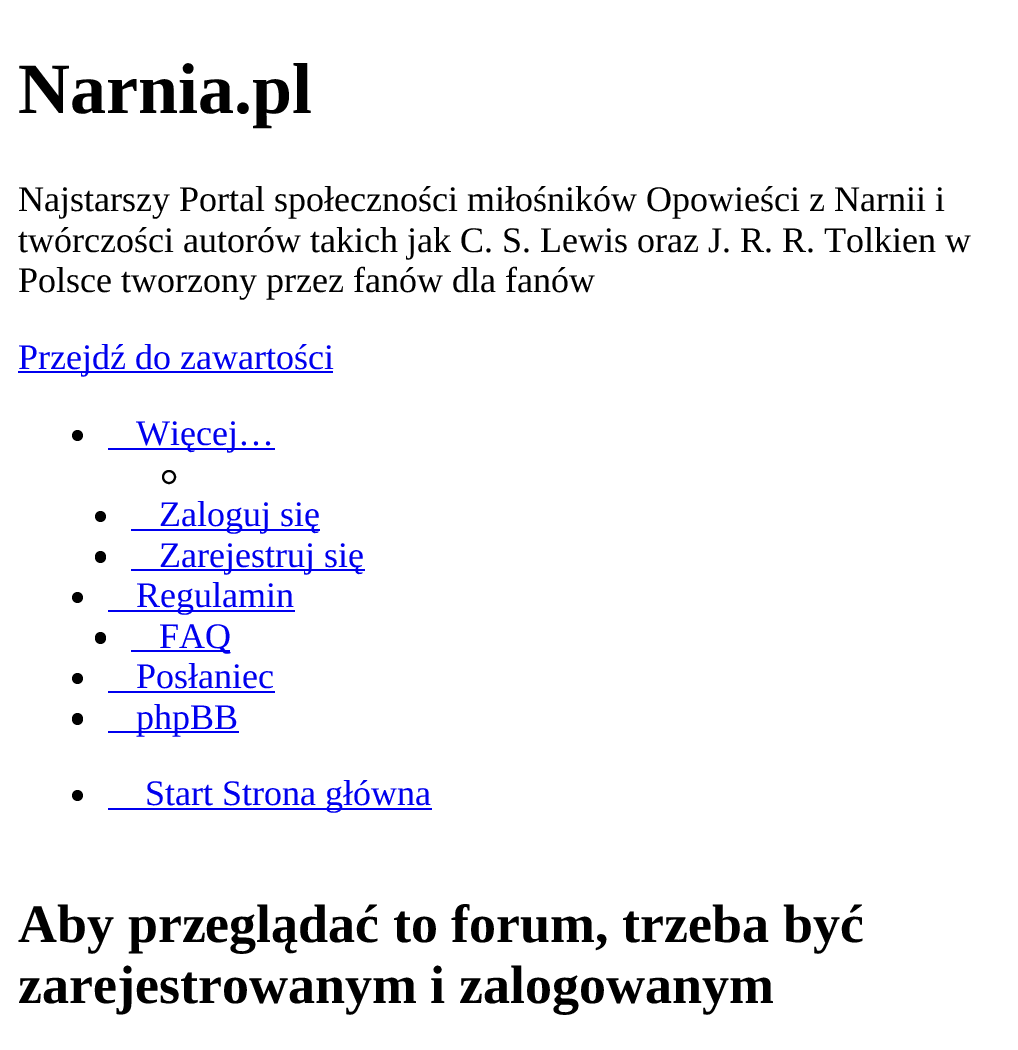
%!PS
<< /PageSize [1018 1050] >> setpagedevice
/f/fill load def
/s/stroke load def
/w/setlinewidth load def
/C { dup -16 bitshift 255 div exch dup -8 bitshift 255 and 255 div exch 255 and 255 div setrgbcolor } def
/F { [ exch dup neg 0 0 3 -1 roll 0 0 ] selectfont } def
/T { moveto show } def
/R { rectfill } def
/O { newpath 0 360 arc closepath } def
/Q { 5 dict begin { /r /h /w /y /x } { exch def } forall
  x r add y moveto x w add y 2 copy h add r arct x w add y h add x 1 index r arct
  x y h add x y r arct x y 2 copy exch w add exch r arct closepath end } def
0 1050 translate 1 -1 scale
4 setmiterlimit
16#FFFFFF C
0 0 1018 1050 R
/LiberationSerif-Bold 72 F
16#000000 C
(Narnia.pl) 18 113 T
/LiberationSerif-Regular 36 F
(Najstarszy Portal społeczności miłośników Opowieści z Narnii i) 18 211 T
(twórczości autorów takich jak C. S. Lewis oraz J. R. R. Tolkien w) 18 252 T
(Polsce tworzony przez fanów dla fanów) 18 292 T
16#0000EE C
18 371 315 2 R
(Przejdź do zawartości) 18 369 T
16#000000 C
77.5 435.5 5.5 O f
16#0000EE C
108 448 167 2 R
(Więcej…) 136 445 T
16#000000 C
2 w
169 477 6 O s
100.5 516.5 5.5 O f
16#0000EE C
131 529 189 2 R
(Zaloguj się) 159 526 T
16#000000 C
95 551 11 12 5.5 Q f
16#0000EE C
131 569 234 2 R
(Zarejestruj się) 159 567 T
16#000000 C
77.5 597.5 5.5 O f
16#0000EE C
108 610 187 2 R
(Regulamin) 136 607 T
16#000000 C
95 632 11 12 5.5 Q f
16#0000EE C
131 650 99 2 R
(FAQ) 159 648 T
16#000000 C
77.5 678.5 5.5 O f
16#0000EE C
(Posłaniec) 136 688 T
108 691 167 2 R
16#000000 C
72 713 11 12 5.5 Q f
16#0000EE C
108 731 131 2 R
(phpBB) 136 729 T
16#000000 C
77.5 795.5 5.5 O f
16#0000EE C
108 808 324 2 R
(Start Strona główna) 145 805 T
/LiberationSerif-Bold 54 F
16#000000 C
(Aby przeglądać to forum, trzeba być) 18 942 T
(zarejestrowanym i zalogowanym) 18 1003 T
showpage
